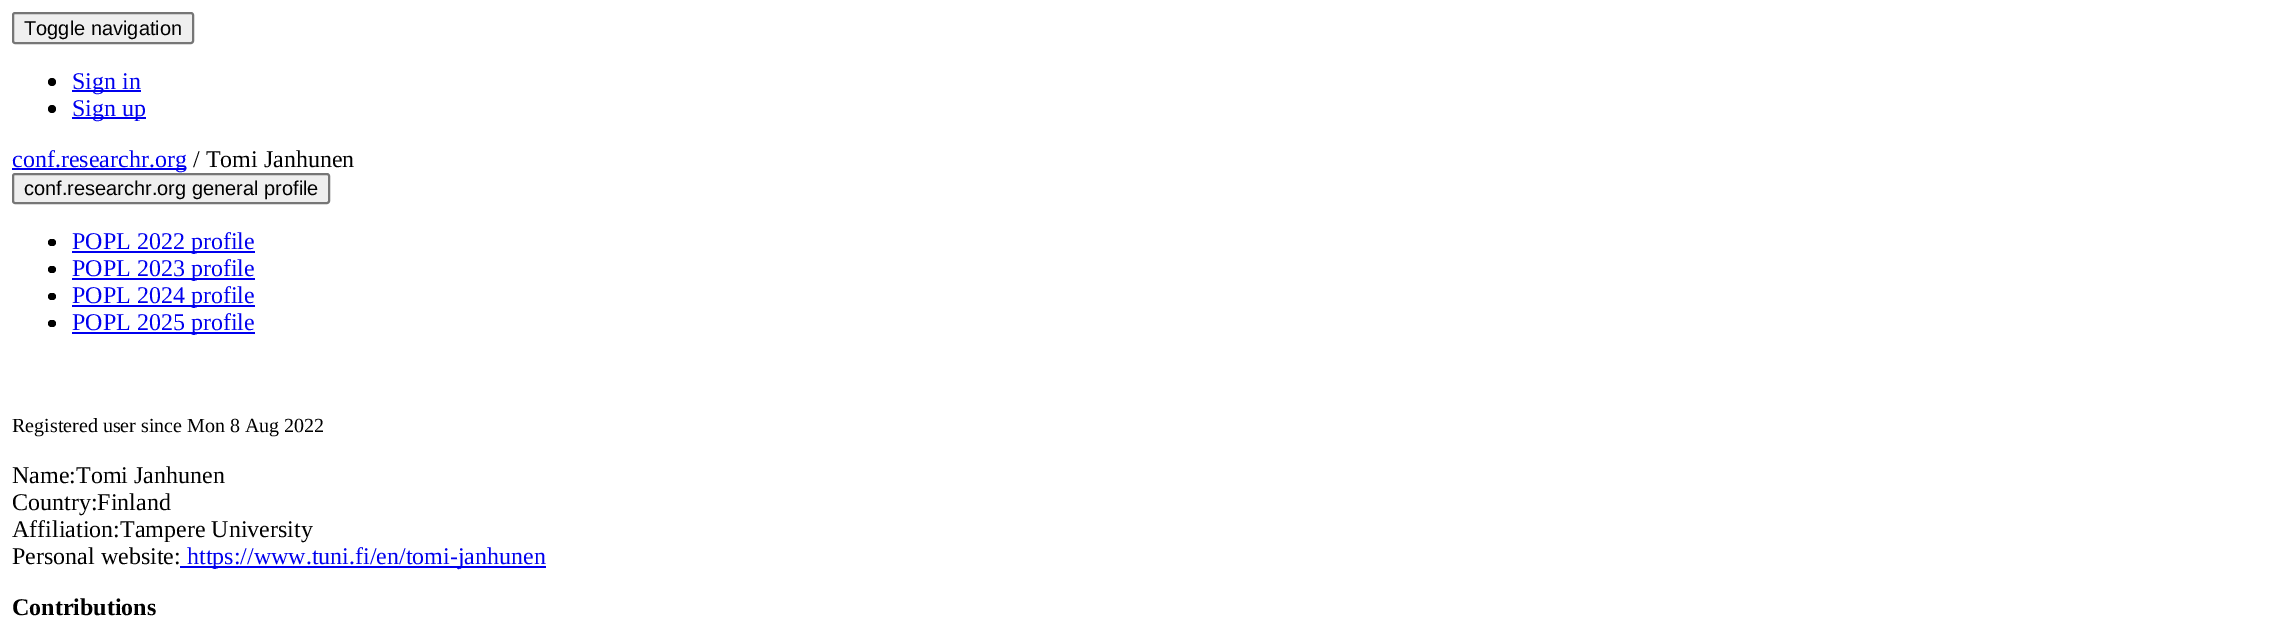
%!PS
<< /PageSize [2282 629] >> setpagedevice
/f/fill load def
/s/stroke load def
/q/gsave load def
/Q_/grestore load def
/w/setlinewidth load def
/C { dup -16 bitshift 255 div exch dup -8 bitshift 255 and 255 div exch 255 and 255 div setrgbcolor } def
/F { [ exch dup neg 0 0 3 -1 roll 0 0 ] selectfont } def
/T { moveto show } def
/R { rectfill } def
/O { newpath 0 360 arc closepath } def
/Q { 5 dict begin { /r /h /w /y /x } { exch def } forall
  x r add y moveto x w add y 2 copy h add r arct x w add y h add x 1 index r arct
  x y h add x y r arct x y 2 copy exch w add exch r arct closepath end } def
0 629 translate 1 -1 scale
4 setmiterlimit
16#FFFFFF C
0 0 2282 629 R
16#EFEFEF C
13 13 180 30 2 Q q f Q_
16#767676 C
2 w
s
/LiberationSans-Regular 20 F
16#000000 C
(Toggle navigation) 24 35 T
52 82 4 O f
16#0000EE C
72 90 69 2 R
/LiberationSerif-Regular 24 F
(Sign in) 72 89 T
16#000000 C
52 109 4 O f
16#0000EE C
72 117 74 2 R
(Sign up) 72 116 T
12 168 174 2 R
(conf.researchr.org) 12 167 T
16#000000 C
(/ Tomi Janhunen) 193 167 T
16#EFEFEF C
13 174 316 29 2 Q q f Q_
16#767676 C
s
/LiberationSans-Regular 20 F
16#000000 C
(conf.researchr.org general profile) 24 195 T
48 239 8 7 3.5 Q f
16#0000EE C
72 251 183 2 R
/LiberationSerif-Regular 24 F
(POPL 2022 profile) 72 249 T
16#000000 C
48 266 8 7 3.5 Q f
16#0000EE C
72 278 183 2 R
(POPL 2023 profile) 72 276 T
16#000000 C
48 293 8 7 3.5 Q f
16#0000EE C
72 305 183 2 R
(POPL 2024 profile) 72 303 T
16#000000 C
48 320 8 7 3.5 Q f
16#0000EE C
72 332 183 2 R
(POPL 2025 profile) 72 330 T
/LiberationSerif-Regular 20 F
16#000000 C
(Registered user since Mon 8 Aug 2022) 12 432 T
/LiberationSerif-Regular 24 F
(Name:Tomi Janhunen) 12 483 T
(Country:Finland) 12 510 T
(Affiliation:Tampere University) 12 537 T
(Personal website:) 12 564 T
16#0000EE C
180 566 366 2 R
(https://www.tuni.fi/en/tomi-janhunen) 187 564 T
/LiberationSerif-Bold 24 F
16#000000 C
(Contributions) 12 615 T
showpage
